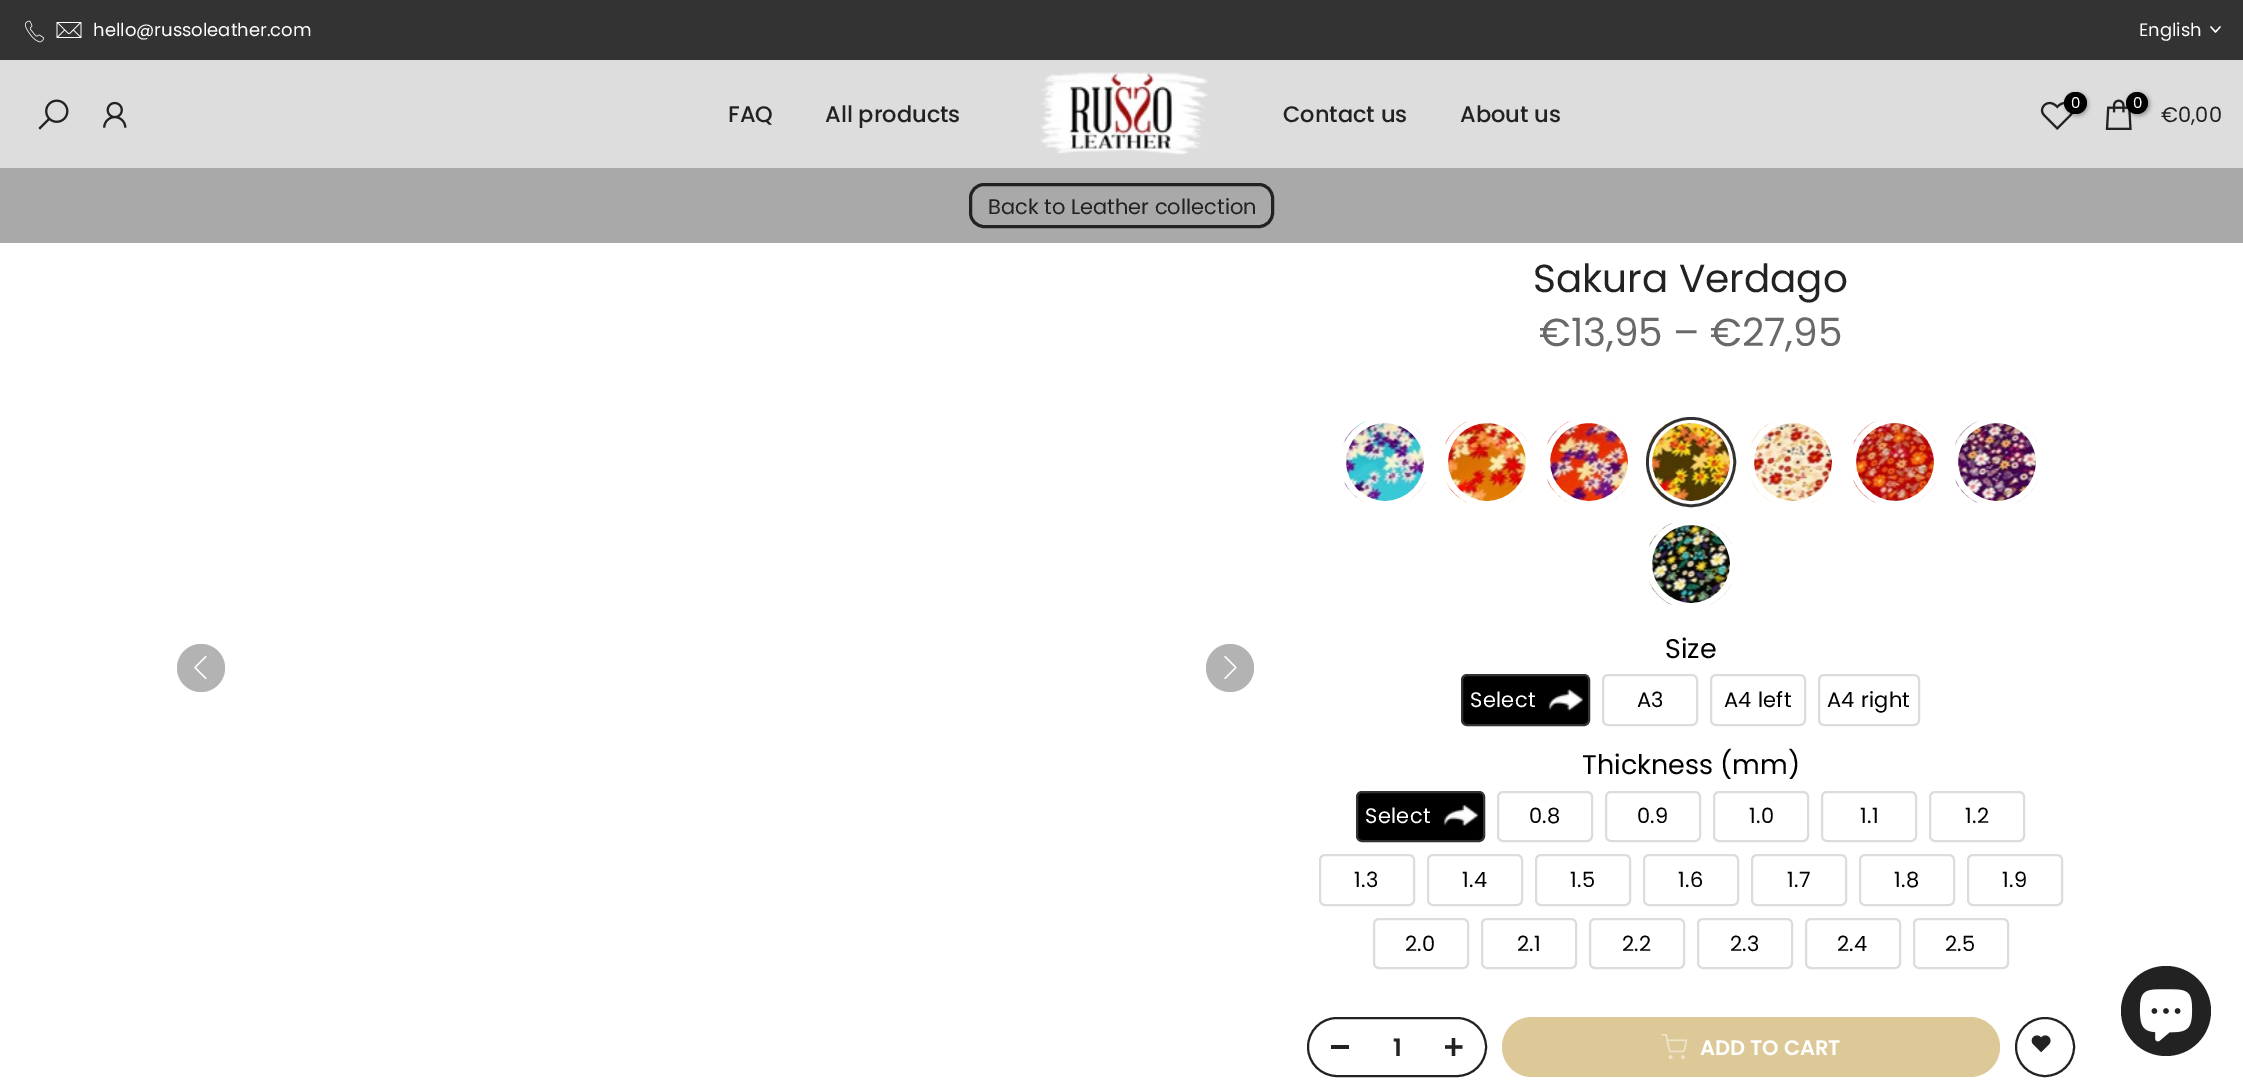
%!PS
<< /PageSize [2243 1087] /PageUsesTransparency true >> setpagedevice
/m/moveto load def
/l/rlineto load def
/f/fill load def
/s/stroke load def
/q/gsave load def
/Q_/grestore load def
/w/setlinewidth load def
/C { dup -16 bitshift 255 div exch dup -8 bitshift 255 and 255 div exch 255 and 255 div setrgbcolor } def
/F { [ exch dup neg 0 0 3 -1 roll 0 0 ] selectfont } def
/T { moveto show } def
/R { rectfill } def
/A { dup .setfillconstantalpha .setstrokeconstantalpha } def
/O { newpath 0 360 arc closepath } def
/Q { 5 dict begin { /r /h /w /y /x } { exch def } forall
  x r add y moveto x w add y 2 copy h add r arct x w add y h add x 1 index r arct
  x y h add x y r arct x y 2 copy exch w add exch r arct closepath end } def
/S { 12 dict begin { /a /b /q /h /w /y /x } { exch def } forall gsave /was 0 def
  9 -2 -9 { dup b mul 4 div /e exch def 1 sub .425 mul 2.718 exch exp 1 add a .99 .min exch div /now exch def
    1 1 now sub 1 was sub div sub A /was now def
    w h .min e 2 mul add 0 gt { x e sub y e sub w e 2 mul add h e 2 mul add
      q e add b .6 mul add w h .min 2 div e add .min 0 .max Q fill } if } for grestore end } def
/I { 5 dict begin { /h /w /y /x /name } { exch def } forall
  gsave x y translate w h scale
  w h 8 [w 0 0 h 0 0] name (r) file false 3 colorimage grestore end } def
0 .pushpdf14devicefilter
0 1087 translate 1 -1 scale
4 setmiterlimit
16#FFFFFF C
0 0 2243 1087 R
16#333333 C
0 0 2243 60 R
(1.rgb) 24 20 21 23 I
(2.rgb) 56 22 26 16 I
/Poppins-Regular 18 F
16#FFFFFF C
(hello@russoleather.com) 93 36 T
(English) 2139 36 T
1.3 w
2 setlinecap
2220 27 m -4.5 5 l -4.5 -5 l s
16#DDDDDD C
0 60 2243 108 R
(3.rgb) 38 99 31 31 I
(4.rgb) 103 101 24 27 I
/Poppins-Medium 22.5 F
16#222222 C
(FAQ) 728 122 T
(All products) 825 122 T
(5.rgb) 1040 72 168 83 I
(Contact us) 1283 122 T
(About us) 1460 122 T
(6.rgb) 2040 101 34 29 I
16#000000 C
2066 93 22 23 11 2 .3 S
2064 92 23 22 11 Q f
/Poppins-Regular 15 F
16#FFFFFF C
(0) 2071 108 T
(7.rgb) 2105 99 27 31 I
16#000000 C
2127 93 23 23 11.5 2 .3 S
2137 103 11 O f
16#FFFFFF C
(0) 2133 108 T
/Poppins-Regular 21 F
16#222222 C
(€0,00) 2161 122 T
16#A9A9A9 C
0 168 2243 75 R
16#222222 C
3 w
0 setlinecap
970.5 184.5 302 42 13.5 Q s
(Back to Leather collection) 988 214 T
16#B3B3B3 C
201 668 24 O f
(8.rgb) 194 656 13 24 I
1230 668 24 O f
(9.rgb) 1224 656 13 23 I
/Poppins-Regular 39 F
16#222222 C
(Sakura Verdago) 1533 292 T
16#696969 C
(€13,95 – €27,95) 1539 346 T
(10.rgb) 1343 421 83 82 I
16#FFFFFF C
5 w
1385 462 42.5 O s
3 w
1385 462 40.5 O s
(11.rgb) 1445 421 83 82 I
5 w
1487 462 42.5 O s
3 w
1487 462 40.5 O s
(12.rgb) 1547 421 83 82 I
5 w
1589 462 42.5 O s
3 w
1589 462 40.5 O s
(13.rgb) 1649 421 83 82 I
16#323232 C
5 w
1691 462 42.5 O s
16#FFFFFF C
3 w
1691 462 40.5 O s
(14.rgb) 1751 421 83 82 I
5 w
1793 462 42.5 O s
3 w
1793 462 40.5 O s
(15.rgb) 1853 421 83 82 I
5 w
1895 462 42.5 O s
3 w
1895 462 40.5 O s
(16.rgb) 1955 421 83 82 I
5 w
1997 462 42.5 O s
3 w
1997 462 40.5 O s
(17.rgb) 1649 523 83 82 I
5 w
1691 564 42.5 O s
3 w
1691 564 40.5 O s
/Poppins-Regular 27 F
16#000000 C
(Size) 1665 658 T
1462 675 127 50 5 Q q f Q_
16#323232 C
2 w
s
/Poppins-Regular 21 F
16#FFFFFF C
1470 707 m .25 0 (Select) ashow
(18.rgb) 1548 688 36 24 I
16#DCDCDC C
1603 675 94 50 5 Q s
16#000000 C
1637 707 m .25 0 (A3) ashow
16#DCDCDC C
1711 675 94 50 5 Q s
16#000000 C
1724 707 m .25 0 (A4 left) ashow
16#DCDCDC C
1819 675 100 50 5 Q s
16#000000 C
1827 707 m .25 0 (A4 right) ashow
/Poppins-Regular 27 F
(Thickness \(mm\)) 1582 774 T
1357 792 127 49 5 Q q f Q_
16#323232 C
s
/Poppins-Regular 21 F
16#FFFFFF C
1365 823 m .25 0 (Select) ashow
(19.rgb) 1443 804 36 23 I
16#DCDCDC C
1498 792 94 49 5 Q s
16#000000 C
1529 823 m .25 0 (0.8) ashow
16#DCDCDC C
1606 792 94 49 5 Q s
16#000000 C
1637 823 m .25 0 (0.9) ashow
16#DCDCDC C
1714 792 94 49 5 Q s
16#000000 C
1749 823 m .25 0 (1.0) ashow
16#DCDCDC C
1822 792 94 49 5 Q s
16#000000 C
1860 823 m .25 0 (1.1) ashow
16#DCDCDC C
1930 792 94 49 5 Q s
16#000000 C
1965 823 m .25 0 (1.2) ashow
16#DCDCDC C
1320 855 94 50 5 Q s
16#000000 C
1354 887 m .25 0 (1.3) ashow
16#DCDCDC C
1428 855 94 50 5 Q s
16#000000 C
1462 887 m .25 0 (1.4) ashow
16#DCDCDC C
1536 855 94 50 5 Q s
16#000000 C
1570 887 m .25 0 (1.5) ashow
16#DCDCDC C
1644 855 94 50 5 Q s
16#000000 C
1678 887 m .25 0 (1.6) ashow
16#DCDCDC C
1752 855 94 50 5 Q s
16#000000 C
1787 887 m .25 0 (1.7) ashow
16#DCDCDC C
1860 855 94 50 5 Q s
16#000000 C
1894 887 m .25 0 (1.8) ashow
16#DCDCDC C
1968 855 94 50 5 Q s
16#000000 C
2002 887 m .25 0 (1.9) ashow
16#DCDCDC C
1374 919 94 49 5 Q s
16#000000 C
1405 951 m .25 0 (2.0) ashow
16#DCDCDC C
1482 919 94 49 5 Q s
16#000000 C
1517 951 m .25 0 (2.1) ashow
16#DCDCDC C
1590 919 94 49 5 Q s
16#000000 C
1622 951 m .25 0 (2.2) ashow
16#DCDCDC C
1698 919 94 49 5 Q s
16#000000 C
1730 951 m .25 0 (2.3) ashow
16#DCDCDC C
1806 919 94 49 5 Q s
16#000000 C
1837 951 m .25 0 (2.4) ashow
16#DCDCDC C
1914 919 94 49 5 Q s
16#000000 C
1945 951 m .25 0 (2.5) ashow
16#222222 C
1308 1018 178 58 29 Q s
1331 1045 18 4 R
/Poppins-SemiBold 24 F
(1) 1393 1056 T
(20.rgb) 1445 1038 18 18 I
16#DDC998 C
1502 1017 498 60 30 Q f
(21.rgb) 1661 1034 27 25 I
/Poppins-SemiBold 21 F
16#FFFFFF C
(ADD TO CART) 1700 1055 T
16#222222 C
2045 1047 29 O s
(22.rgb) 2031 1035 20 17 I
2166 1011 45 O f
(23.rgb) 2139 989 54 53 I
.poppdf14devicefilter showpage
